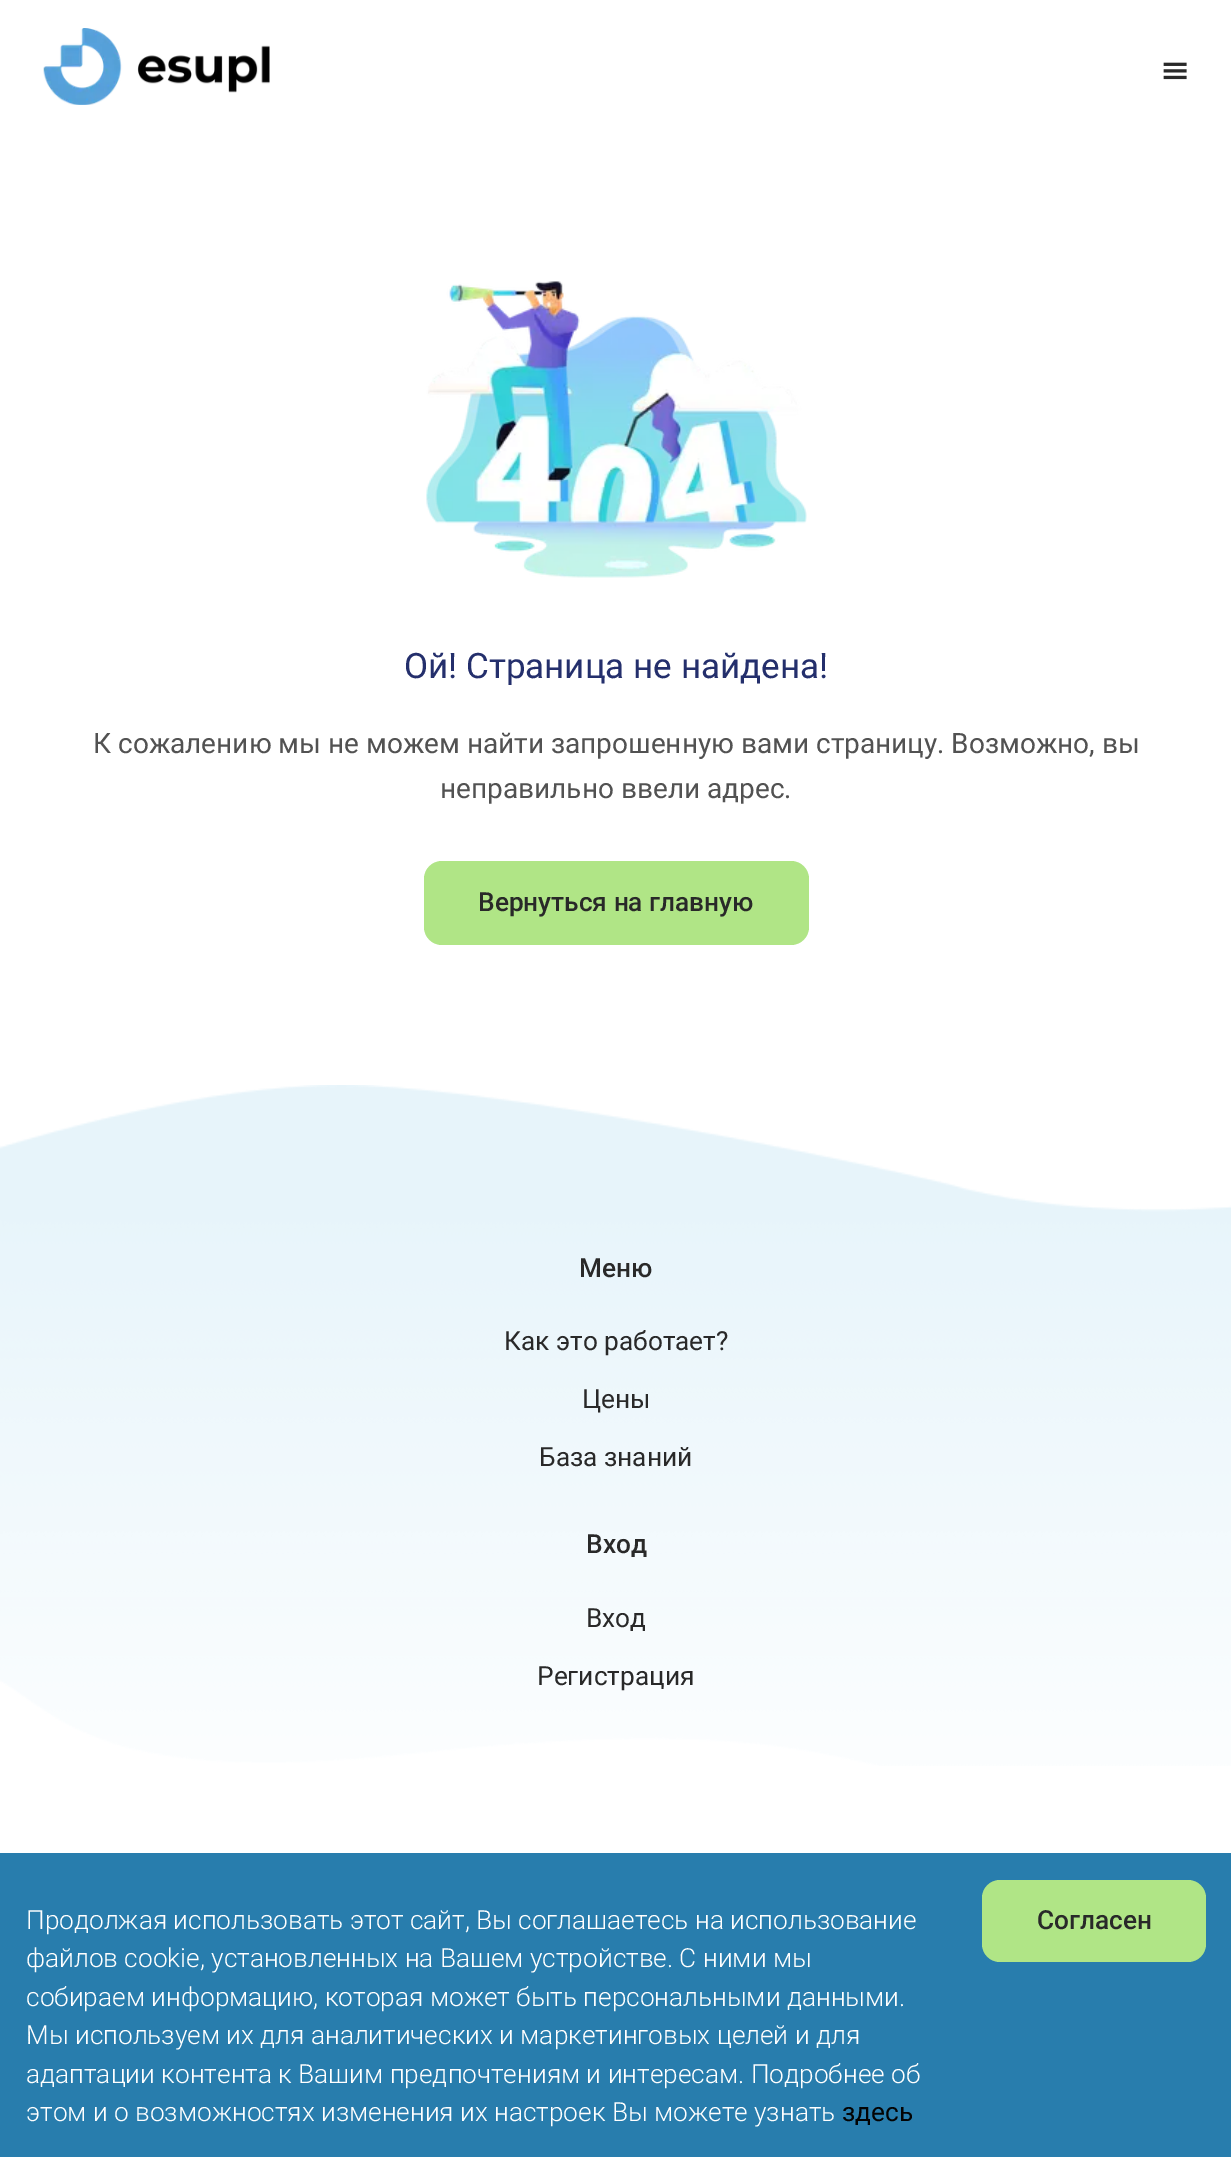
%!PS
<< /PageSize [1231 2157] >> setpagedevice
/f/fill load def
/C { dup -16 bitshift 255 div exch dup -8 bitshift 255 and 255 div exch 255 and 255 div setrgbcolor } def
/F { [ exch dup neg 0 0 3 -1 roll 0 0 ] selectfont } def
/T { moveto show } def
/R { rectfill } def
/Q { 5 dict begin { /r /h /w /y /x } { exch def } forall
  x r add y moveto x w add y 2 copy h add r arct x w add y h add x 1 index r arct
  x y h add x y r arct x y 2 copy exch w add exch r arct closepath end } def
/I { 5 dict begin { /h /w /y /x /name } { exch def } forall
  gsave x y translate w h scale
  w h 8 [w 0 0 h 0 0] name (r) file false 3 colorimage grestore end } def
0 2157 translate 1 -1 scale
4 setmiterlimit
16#FFFFFF C
0 0 1231 2157 R
(1.rgb) 43 28 227 77 I
(2.rgb) 1163 62 24 18 I
(3.rgb) 426 281 381 297 I
/Roboto-Regular 35 F
16#242F6C C
(Ой! Страница не найдена!) 404 678 T
/Roboto-Regular 28 F
16#525252 C
(К сожалению мы не можем найти запрошенную вами страницу. Возможно, вы) 93 753 T
(неправильно ввели адрес.) 440 798 T
16#B0E586 C
424 861 385 84 18 Q f
/Roboto-Medium 26.25 F
16#292929 C
(Вернуться на главную) 478 911 T
(4.rgb) 0 1085 1231 681 I
(Меню) 579 1277 T
/Roboto-Regular 26.25 F
(Как это работает?) 504 1350 T
(Цены) 582 1408 T
(База знаний) 539 1466 T
/Roboto-Medium 26.25 F
(Вход) 586 1553 T
/Roboto-Regular 26.25 F
(Вход) 586 1627 T
(Регистрация) 537 1685 T
16#287DAD C
0 1853 1231 304 R
/Roboto-Light 26.25 F
16#FFFFFF C
(Продолжая использовать этот сайт, Вы соглашаетесь на использование) 26 1929 T
(файлов cookie, установленных на Вашем устройстве. С ними мы) 26 1967 T
(собираем информацию, которая может быть персональными данными.) 26 2006 T
(Мы используем их для аналитических и маркетинговых целей и для) 26 2044 T
(адаптации контента к Вашим предпочтениям и интересам. Подробнее об) 26 2083 T
(этом и о возможностях изменения их настроек Вы можете узнать) 26 2121 T
/Roboto-Regular 26.25 F
16#030303 C
(здесь) 842 2121 T
16#B0E586 C
982 1880 224 82 18 Q f
/Roboto-Medium 26.25 F
16#292929 C
(Согласен) 1037 1929 T
showpage
